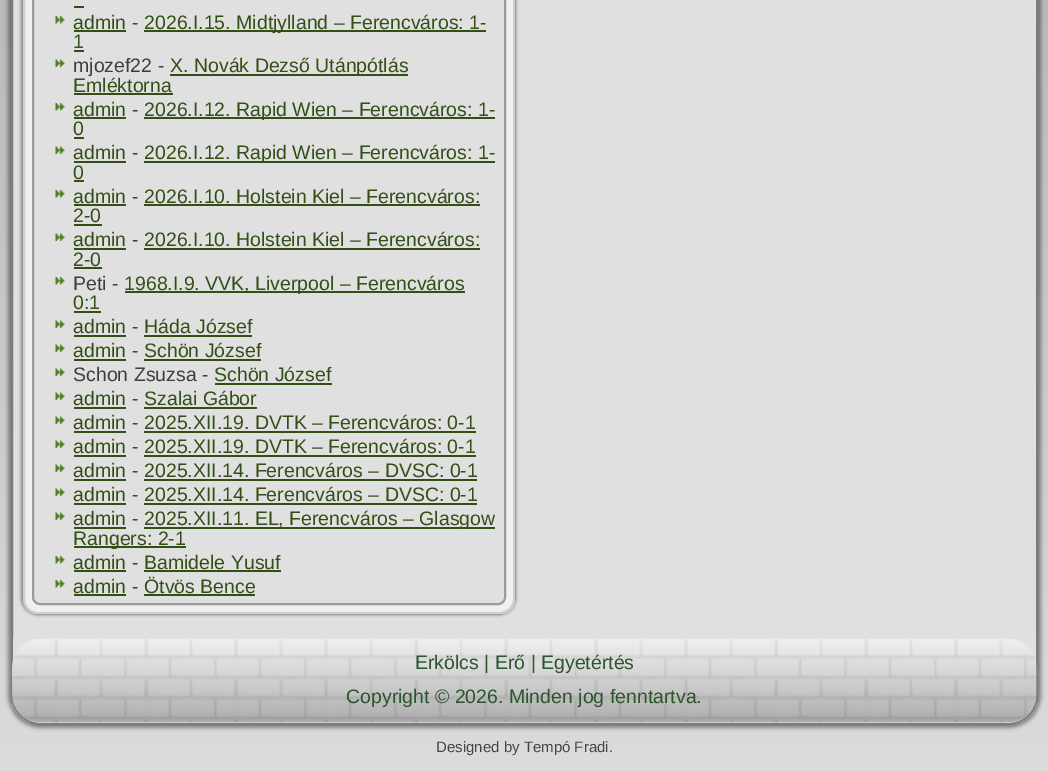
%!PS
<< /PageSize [1048 771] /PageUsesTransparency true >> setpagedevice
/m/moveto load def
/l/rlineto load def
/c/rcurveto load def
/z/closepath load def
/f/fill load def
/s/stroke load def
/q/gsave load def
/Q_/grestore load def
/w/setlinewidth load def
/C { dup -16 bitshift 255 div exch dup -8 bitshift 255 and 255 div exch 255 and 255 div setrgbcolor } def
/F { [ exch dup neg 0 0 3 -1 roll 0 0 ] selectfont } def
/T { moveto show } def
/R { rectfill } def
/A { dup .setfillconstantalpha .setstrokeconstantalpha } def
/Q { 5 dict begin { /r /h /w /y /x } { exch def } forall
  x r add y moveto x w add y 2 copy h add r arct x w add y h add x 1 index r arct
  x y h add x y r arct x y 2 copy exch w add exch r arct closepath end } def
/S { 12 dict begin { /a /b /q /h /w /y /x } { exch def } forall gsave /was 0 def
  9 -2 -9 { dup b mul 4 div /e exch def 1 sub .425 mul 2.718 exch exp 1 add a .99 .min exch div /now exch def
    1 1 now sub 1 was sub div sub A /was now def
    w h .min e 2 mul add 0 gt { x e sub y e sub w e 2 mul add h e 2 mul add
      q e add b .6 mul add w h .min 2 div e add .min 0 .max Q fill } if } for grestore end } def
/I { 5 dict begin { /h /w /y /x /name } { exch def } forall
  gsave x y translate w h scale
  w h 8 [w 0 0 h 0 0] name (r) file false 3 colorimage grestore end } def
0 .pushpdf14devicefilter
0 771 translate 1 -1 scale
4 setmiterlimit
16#FFFFFF C
0 0 1048 771 R
q 0 0 m 1048 0 l 0 771 l -1048 0 l z clip newpath
<< /ShadingType 2 /ColorSpace /DeviceRGB /Coords [524 0 524 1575] /Extend [true true] /Function << /FunctionType 2 /Domain [0 1] /C0 [.729 .729 .729] /C1 [1 1 1] /N 1 >> >> shfill Q_
16#000000 C
8 -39 1033 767 33 2 .4 S
16#E0E0E0 C
12 -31 1025 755 29 Q q f Q_
16#7F7B79 C
2 w
s
16#000000 C
21 -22 495 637 17 1.5 .4 S
16#F0F0F0 C
23 -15 492 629 15 Q f
0.2 A
16#4C4C4C C
24 -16 490 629 14 Q s
1 A
16#E0E0E0 C
33 -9 m 472 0 l 0 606 l 0 4 -3 7 -7 7 c -458 0 l -4 0 -7 -3 -7 -7 c z q f Q_
16#9A9A9A C
s
16#344F16 C
74 6 10 2 R
(1.rgb) 55 16 10 8 I
/LiberationSans-Regular 19.5 F
(admin) 73 29 T
74 30 52 2 R
16#3F3D3D C
(-) 132 29 T
16#344F16 C
144 30 342 2 R
(2026.I.15. Midtjylland – Ferencváros: 1-) 144 29 T
(1) 73 48 T
74 50 10 2 R
(2.rgb) 55 59 10 8 I
16#3F3D3D C
(mjozef22 -) 73 72 T
16#344F16 C
170 74 238 2 R
(X. Novák Dezső Utánpótlás) 170 72 T
(Emléktorna) 73 92 T
74 93 99 2 R
(1.rgb) 55 103 10 8 I
(admin) 73 116 T
74 117 52 2 R
16#3F3D3D C
(-) 132 116 T
16#344F16 C
144 117 351 2 R
(2026.I.12. Rapid Wien – Ferencváros: 1-) 144 116 T
(0) 73 135 T
74 137 10 2 R
(2.rgb) 55 146 10 8 I
(admin) 73 159 T
74 161 52 2 R
16#3F3D3D C
(-) 132 159 T
16#344F16 C
144 161 351 2 R
(2026.I.12. Rapid Wien – Ferencváros: 1-) 144 159 T
(0) 73 179 T
74 180 10 2 R
(1.rgb) 55 190 10 8 I
(admin) 73 203 T
74 204 52 2 R
16#3F3D3D C
(-) 132 203 T
16#344F16 C
(2026.I.10. Holstein Kiel – Ferencváros:) 144 203 T
144 204 336 2 R
(2-0) 73 222 T
74 224 28 2 R
(2.rgb) 55 233 10 8 I
(admin) 73 246 T
74 248 52 2 R
16#3F3D3D C
(-) 132 246 T
16#344F16 C
(2026.I.10. Holstein Kiel – Ferencváros:) 144 246 T
144 248 336 2 R
(2-0) 73 266 T
74 267 28 2 R
(1.rgb) 55 277 10 8 I
16#3F3D3D C
(Peti -) 73 290 T
16#344F16 C
125 291 340 2 R
(1968.I.9. VVK, Liverpool – Ferencváros) 124 290 T
(0:1) 73 309 T
74 311 27 2 R
(2.rgb) 55 320 10 8 I
(admin) 73 333 T
74 335 52 2 R
16#3F3D3D C
(-) 132 333 T
16#344F16 C
(Háda József) 144 333 T
144 335 108 2 R
(2.rgb) 55 344 10 8 I
(admin) 73 357 T
74 359 52 2 R
16#3F3D3D C
(-) 132 357 T
16#344F16 C
(Schön József) 144 357 T
144 359 117 2 R
(2.rgb) 55 368 10 8 I
16#3F3D3D C
(Schon Zsuzsa -) 73 381 T
16#344F16 C
(Schön József) 214 381 T
215 383 117 2 R
(2.rgb) 55 392 10 8 I
(admin) 73 405 T
74 407 52 2 R
16#3F3D3D C
(-) 132 405 T
16#344F16 C
(Szalai Gábor) 144 405 T
144 407 113 2 R
(2.rgb) 55 416 10 8 I
(admin) 73 429 T
74 431 52 2 R
16#3F3D3D C
(-) 132 429 T
16#344F16 C
(2025.XII.19. DVTK – Ferencváros: 0-1) 144 429 T
144 431 332 2 R
(2.rgb) 55 440 10 8 I
(admin) 73 453 T
74 455 52 2 R
16#3F3D3D C
(-) 132 453 T
16#344F16 C
(2025.XII.19. DVTK – Ferencváros: 0-1) 144 453 T
144 455 332 2 R
(2.rgb) 55 464 10 8 I
(admin) 73 477 T
74 479 52 2 R
16#3F3D3D C
(-) 132 477 T
16#344F16 C
(2025.XII.14. Ferencváros – DVSC: 0-1) 144 477 T
144 479 333 2 R
(2.rgb) 55 488 10 8 I
(admin) 73 501 T
74 503 52 2 R
16#3F3D3D C
(-) 132 501 T
16#344F16 C
(2025.XII.14. Ferencváros – DVSC: 0-1) 144 501 T
144 503 333 2 R
(2.rgb) 55 512 10 8 I
(admin) 73 525 T
74 527 52 2 R
16#3F3D3D C
(-) 132 525 T
16#344F16 C
144 527 351 2 R
(2025.XII.11. EL, Ferencváros – Glasgow) 144 525 T
74 546 112 2 R
(Rangers: 2-1) 73 545 T
(1.rgb) 55 556 10 8 I
(admin) 73 569 T
74 570 52 2 R
16#3F3D3D C
(-) 132 569 T
16#344F16 C
(Bamidele Yusuf) 144 569 T
144 570 137 2 R
(1.rgb) 55 580 10 8 I
(admin) 73 593 T
74 594 52 2 R
16#3F3D3D C
(-) 132 593 T
16#344F16 C
(Ötvös Bence) 144 593 T
144 594 111 2 R
(3.rgb) 12 638 1025 85 I
16#2D552B C
(Erkölcs | Erő | Egyetértés) 415 669 T
(Copyright © 2026. Minden jog fenntartva.) 346 703 T
/LiberationSans-Regular 15 F
16#464443 C
(Designed by Tempó Fradi.) 436 752 T
.poppdf14devicefilter showpage
